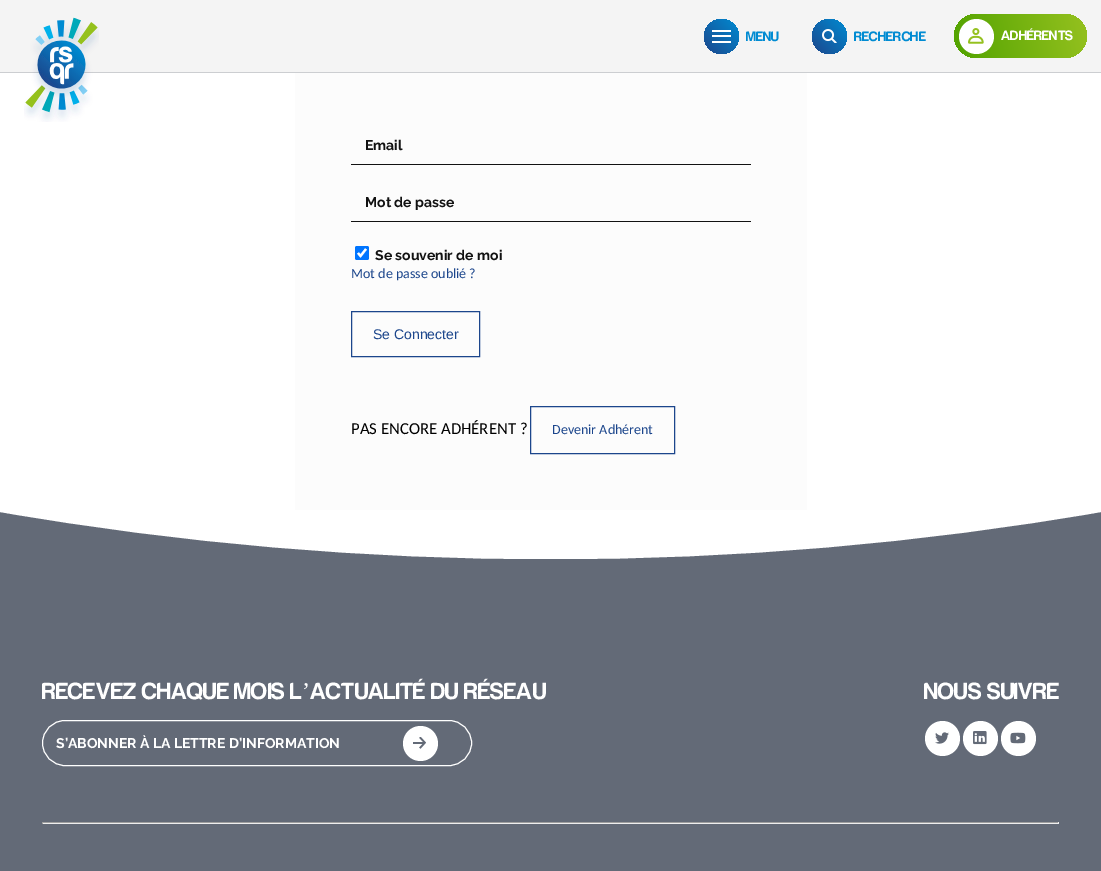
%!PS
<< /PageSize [1101 871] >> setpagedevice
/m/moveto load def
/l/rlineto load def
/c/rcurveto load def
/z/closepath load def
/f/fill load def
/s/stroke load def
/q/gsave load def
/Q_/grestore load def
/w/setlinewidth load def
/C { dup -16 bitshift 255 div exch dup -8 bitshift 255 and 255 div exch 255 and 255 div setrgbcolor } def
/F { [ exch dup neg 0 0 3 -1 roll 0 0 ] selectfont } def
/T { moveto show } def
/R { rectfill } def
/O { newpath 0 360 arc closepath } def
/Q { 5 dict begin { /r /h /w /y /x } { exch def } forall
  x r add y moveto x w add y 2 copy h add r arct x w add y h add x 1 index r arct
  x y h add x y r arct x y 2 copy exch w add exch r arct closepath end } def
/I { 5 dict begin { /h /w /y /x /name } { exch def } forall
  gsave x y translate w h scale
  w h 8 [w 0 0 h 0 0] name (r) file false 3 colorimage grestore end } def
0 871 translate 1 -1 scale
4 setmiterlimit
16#FFFFFF C
0 0 1101 871 R
16#F4F4F4 C
0 0 1101 72 R
16#CCCED1 C
0 72 1101 1 R
(1.rgb) 24 17 75 105 I
q 721.5 36.5 17.5 O clip newpath
<< /ShadingType 2 /ColorSpace /DeviceRGB /Coords [703 53 739 19] /Extend [true true] /Function << /FunctionType 2 /Domain [0 1] /C0 [.11 .275 .549] /C1 [0 .545 .824] /N 1 >> >> shfill Q_
16#FFFFFF C
712 30 19 2 R
712 35 19 2 R
712 41 19 2 R
q
746 29 33 15 rectclip
/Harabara-Bold 14 F
16#008BD2 C
(MENU) 746 41 T
Q_
q 829.5 36.5 17.5 O clip newpath
<< /ShadingType 2 /ColorSpace /DeviceRGB /Coords [811 53 847 19] /Extend [true true] /Function << /FunctionType 2 /Domain [0 1] /C0 [.11 .275 .549] /C1 [0 .545 .824] /N 1 >> >> shfill Q_
(2.rgb) 822 29 15 14 I
q
854 29 72 15 rectclip
/Harabara-Bold 14 F
16#008BD2 C
(RECHERCHE) 854 41 T
Q_
q 954 14 133 44 22 Q clip newpath
<< /ShadingType 2 /ColorSpace /DeviceRGB /Coords [953 52 1088 20] /Extend [true true] /Function << /FunctionType 2 /Domain [0 1] /C0 [.322 .639 0] /C1 [.584 .757 .122] /N 1 >> >> shfill Q_
976.5 36.5 17.5 O f
(3.rgb) 968 28 16 16 I
/Harabara-Bold 14 F
(ADHÉRENTS) 1001 40 T
16#FCFCFC C
295 73 512 437 R
/Raleway-Thin 14 F
16#121212 C
(Email) 365 150 T
351 164 400 1 R
(Mot de passe) 365 207 T
351 221 400 1 R
16#0075FF C
355 246 14 14 2 Q f
16#FFFFFF C
2.2 w
358 253 m 2.5 3 l 5.5 -7 l s
16#121212 C
(Se souvenir de moi) 375 260 T
/Carlito-Regular 14 F
16#1C468C C
(Mot de passe oublié ?) 351 278 T
1 w
351.5 311.5 128 45 rectstroke
/LiberationSans-Regular 14 F
(Se Connecter) 373 339 T
/Carlito-Regular 16.75 F
16#000000 C
(PAS ENCORE ADHÉRENT ?) 351 434 T
16#1C468C C
530.5 406.5 144 47 rectstroke
/Carlito-Regular 14 F
(Devenir Adhérent) 552 434 T
16#636A77 C
0 512 1101 359 R
q
0 510 1101 49 rectclip
16#FFFFFF C
1101 510 m 0 2 l -363 63 -738 63 -1101 0 c 0 -2 l z f
Q_
/Harabara-Bold 24 F
16#FFFFFF C
(RECEVEZ CHAQUE MOIS L) 42 699 T
/LiberationSerif-Regular 24 F
(’) 302 699 T
/Harabara-Bold 24 F
(ACTUALITÉ DU RÉSEAU) 310 699 T
42.5 720.5 429 45 22.5 Q s
/Raleway-Thin 14 F
(S’ABONNER À LA LETTRE D’INFORMATION) 56 748 T
420.5 743.5 17.5 O f
(4.rgb) 413 737 13 12 I
/Harabara-Bold 24 F
(NOUS SUIVRE) 924 699 T
942.5 738.5 17.5 O f
(5.rgb) 935 732 14 12 I
980.5 738.5 17.5 O f
(6.rgb) 973 731 14 14 I
1018.5 738.5 17.5 O f
(7.rgb) 1010 732 16 12 I
16#9F9F9F C
42 822 1017 1 R
16#EEEEEE C
1058 822 1 2 R
42 823 1017 1 R
16#9F9F9F C
42 822 1 2 R
showpage
